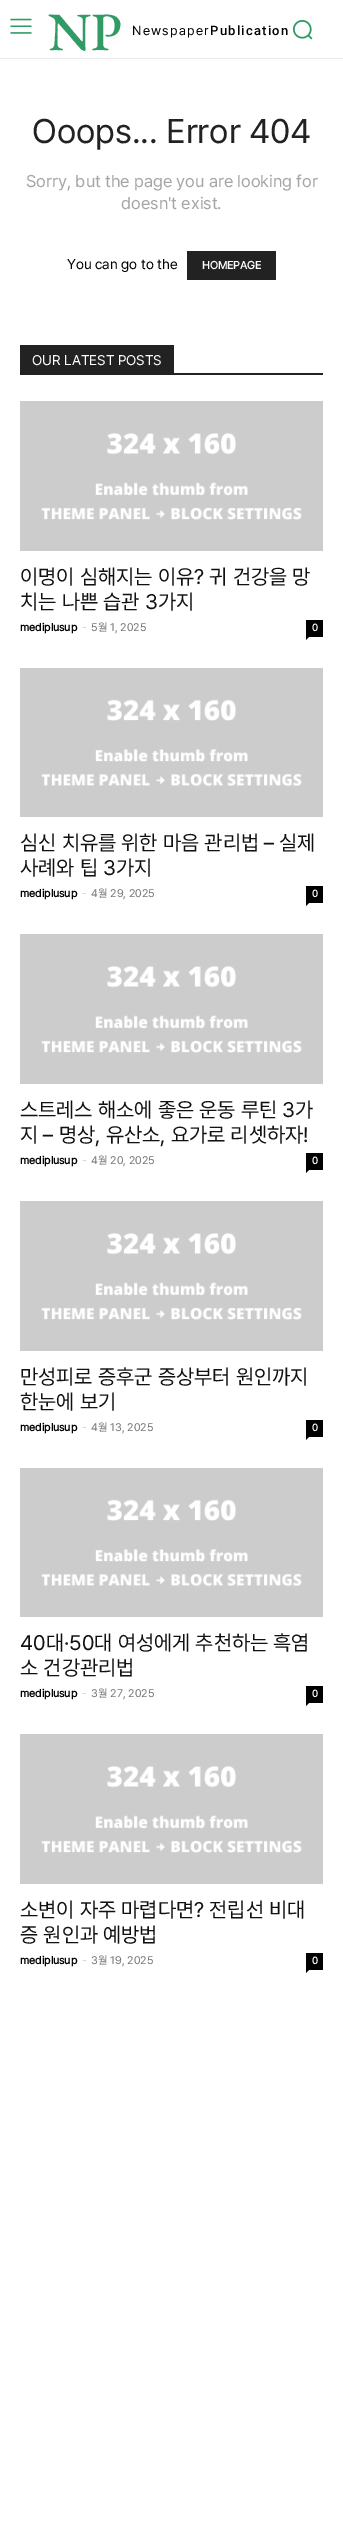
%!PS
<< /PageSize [343 2526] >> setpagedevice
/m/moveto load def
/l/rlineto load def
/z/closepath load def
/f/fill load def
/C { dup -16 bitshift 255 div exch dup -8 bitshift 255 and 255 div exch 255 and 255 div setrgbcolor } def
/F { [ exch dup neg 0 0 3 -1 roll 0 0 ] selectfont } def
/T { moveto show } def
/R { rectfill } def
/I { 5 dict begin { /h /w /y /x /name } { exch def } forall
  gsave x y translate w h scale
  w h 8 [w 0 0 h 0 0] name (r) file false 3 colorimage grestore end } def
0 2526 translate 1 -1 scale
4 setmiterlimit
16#FFFFFF C
0 0 343 2526 R
16#EAEAEA C
0 58 343 1 R
(1.rgb) 10 18 22 16 I
/EBGaramond-Medium 54 F
16#309B65 C
(NP) 48 50 T
/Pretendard-Regular 13 F
16#000000 C
132 35 m 1.25 0 (Newspaper) ashow
/Roboto-Medium 13 F
210 35 m 1.25 0 (Publication) ashow
(2.rgb) 292 19 21 21 I
/Pretendard-Regular 34 F
16#222222 C
(Ooops... Error 404) 32 143 T
/Pretendard-Regular 17 F
16#A6A6A6 C
(Sorry, but the page you are looking for) 26 187 T
(doesn't exist.) 121 209 T
/Pretendard-Regular 14 F
16#000000 C
(You can go to the) 67 269 T
16#222222 C
187 251 89 29 R
/Pretendard-Bold 11 F
16#FFFFFF C
(HOMEPAGE) 202 269 T
16#222222 C
20 373 303 2 R
20 345 154 28 R
/Pretendard-Regular 14 F
16#FFFFFF C
(OUR LATEST POSTS) 32 365 T
(3.rgb) 20 401 303 150 I
/Pretendard-Regular 21 F
16#111111 C
(이명이 심해지는 이유? 귀 건강을 망) 20 584 T
(치는 나쁜 습관 3가지) 20 609 T
/Pretendard-Bold 11 F
16#000000 C
(mediplusup) 20 631 T
/Pretendard-Regular 11 F
16#CCCCCC C
(-) 82 631 T
16#767676 C
(5월 1, 2025) 91 631 T
16#000000 C
306 620 17 17 R
/Pretendard-Bold 10 F
16#FFFFFF C
(0) 312 631 T
16#000000 C
306 637 m 3 0 l -3 3 l z f
(4.rgb) 20 668 303 149 I
/Pretendard-Regular 21 F
16#111111 C
(심신 치유를 위한 마음 관리법 – 실제) 20 850 T
(사례와 팁 3가지) 20 875 T
/Pretendard-Bold 11 F
16#000000 C
(mediplusup) 20 897 T
/Pretendard-Regular 11 F
16#CCCCCC C
(-) 82 897 T
16#767676 C
(4월 29, 2025) 91 897 T
16#000000 C
306 886 17 17 R
/Pretendard-Bold 10 F
16#FFFFFF C
(0) 312 897 T
16#000000 C
306 903 m 3 0 l -3 3 l z f
(3.rgb) 20 934 303 150 I
/Pretendard-Regular 21 F
16#111111 C
(스트레스 해소에 좋은 운동 루틴 3가) 20 1117 T
(지 – 명상, 유산소, 요가로 리셋하자!) 20 1142 T
/Pretendard-Bold 11 F
16#000000 C
(mediplusup) 20 1164 T
/Pretendard-Regular 11 F
16#CCCCCC C
(-) 82 1164 T
16#767676 C
(4월 20, 2025) 91 1164 T
16#000000 C
306 1153 17 17 R
/Pretendard-Bold 10 F
16#FFFFFF C
(0) 312 1164 T
16#000000 C
306 1170 m 3 0 l -3 3 l z f
(3.rgb) 20 1201 303 150 I
/Pretendard-Regular 21 F
16#111111 C
(만성피로 증후군 증상부터 원인까지) 20 1384 T
(한눈에 보기) 20 1409 T
/Pretendard-Bold 11 F
16#000000 C
(mediplusup) 20 1431 T
/Pretendard-Regular 11 F
16#CCCCCC C
(-) 82 1431 T
16#767676 C
(4월 13, 2025) 91 1431 T
16#000000 C
306 1420 17 17 R
/Pretendard-Bold 10 F
16#FFFFFF C
(0) 312 1431 T
16#000000 C
306 1437 m 3 0 l -3 3 l z f
(4.rgb) 20 1468 303 149 I
/Pretendard-Regular 21 F
16#111111 C
(40대·50대 여성에게 추천하는 흑염) 20 1650 T
(소 건강관리법) 20 1675 T
/Pretendard-Bold 11 F
16#000000 C
(mediplusup) 20 1697 T
/Pretendard-Regular 11 F
16#CCCCCC C
(-) 82 1697 T
16#767676 C
(3월 27, 2025) 91 1697 T
16#000000 C
306 1686 17 17 R
/Pretendard-Bold 10 F
16#FFFFFF C
(0) 312 1697 T
16#000000 C
306 1703 m 3 0 l -3 3 l z f
(5.rgb) 20 1734 303 150 I
/Pretendard-Regular 21 F
16#111111 C
(소변이 자주 마렵다면? 전립선 비대) 20 1917 T
(증 원인과 예방법) 20 1942 T
/Pretendard-Bold 11 F
16#000000 C
(mediplusup) 20 1964 T
/Pretendard-Regular 11 F
16#CCCCCC C
(-) 82 1964 T
16#767676 C
(3월 19, 2025) 91 1964 T
16#000000 C
306 1953 17 17 R
/Pretendard-Bold 10 F
16#FFFFFF C
(0) 312 1964 T
16#000000 C
306 1970 m 3 0 l -3 3 l z f
showpage
